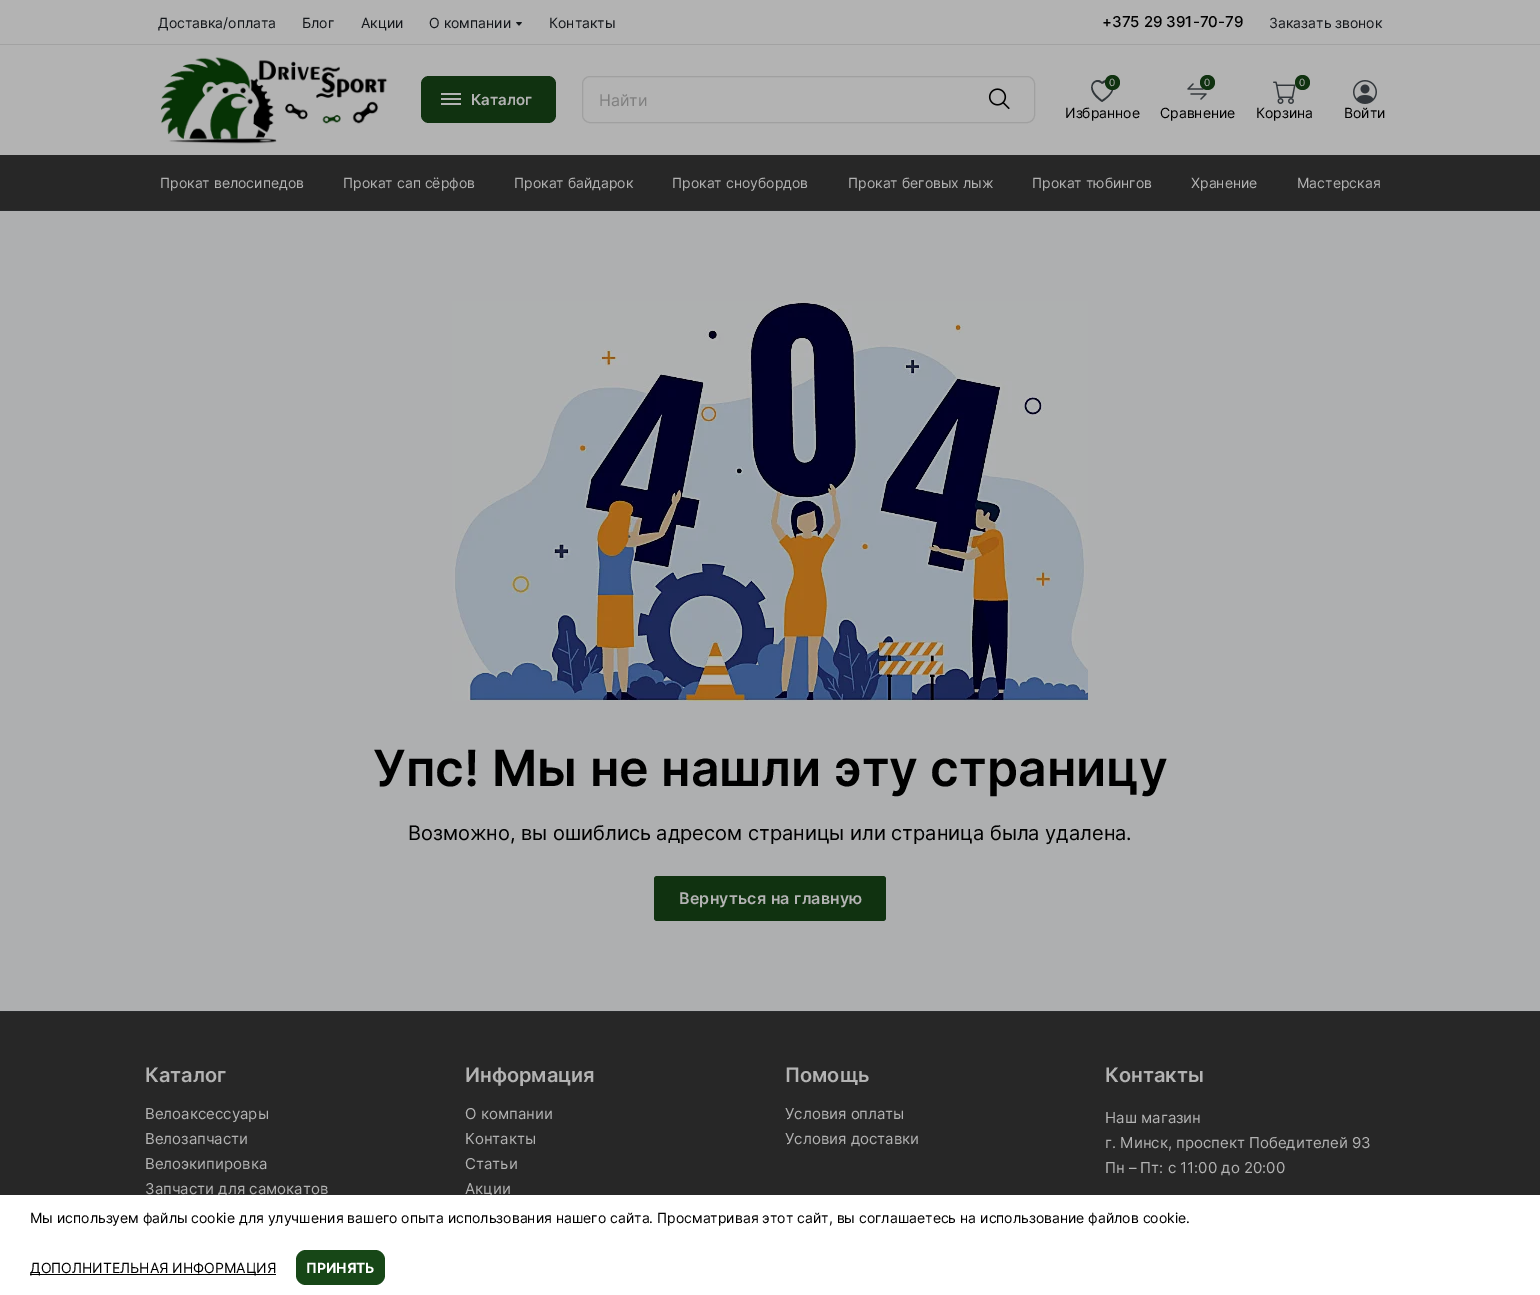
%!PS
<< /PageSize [1540 1295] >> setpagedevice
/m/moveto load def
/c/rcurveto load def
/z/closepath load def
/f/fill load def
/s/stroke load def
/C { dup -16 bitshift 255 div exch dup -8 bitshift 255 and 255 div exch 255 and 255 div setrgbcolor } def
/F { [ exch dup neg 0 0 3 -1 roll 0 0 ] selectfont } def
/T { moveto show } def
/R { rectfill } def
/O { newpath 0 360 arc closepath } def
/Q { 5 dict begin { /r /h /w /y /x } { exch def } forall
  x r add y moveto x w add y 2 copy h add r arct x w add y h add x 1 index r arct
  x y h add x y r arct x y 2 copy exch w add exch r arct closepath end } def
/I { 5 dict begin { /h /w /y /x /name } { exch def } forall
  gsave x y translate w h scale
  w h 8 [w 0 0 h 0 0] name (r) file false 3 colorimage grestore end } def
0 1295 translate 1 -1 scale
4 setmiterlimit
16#B3B3B3 C
0 0 1540 1295 R
16#A2A2A2 C
0 44 1540 1 R
/Inter-Regular 14 F
16#14171B C
(Доставка/оплата) 158 28 T
(Блог) 302 28 T
(Акции) 361 28 T
(О компании) 429 28 T
(1.rgb) 516 22 6 4 I
(Контакты) 549 28 T
/Inter-Medium 15 F
16#000000 C
(+375 29 391-70-79) 1102 27 T
/Inter-Regular 14 F
16#14171B C
(Заказать звонок) 1269 28 T
(2.rgb) 161 57 227 87 I
16#103210 C
421 76 135 47 8 Q f
16#B3B3B3 C
441 103 20 2 R
441 98 20 2 R
441 93 20 2 R
/Inter-SemiBold 15 F
(Каталог) 471 105 T
16#A0A0A0 C
582.5 76.5 452 46 7.5 Q s
/Inter-Regular 16 F
16#7F7F7F C
(Найти) 599 106 T
(3.rgb) 988 88 22 22 I
16#32373B C
1102 84 m -7 -7 -17 4 0 16 c 19 -12 7 -22 2 -17 c z 1102 102 m -21 -14 -6 -27 0 -20 c 7 -7 22 6 0 20 c f
16#103210 C
1112.5 82.5 7.5 O f
/Inter-Regular 10 F
16#B3B3B3 C
(0) 1109 86 T
/Inter-Regular 14 F
16#000000 C
(Избранное) 1065 118 T
(4.rgb) 1187 83 20 17 I
16#103210 C
1207.5 82.5 7.5 O f
/Inter-Regular 10 F
16#B3B3B3 C
(0) 1204 86 T
/Inter-Regular 14 F
16#000000 C
(Сравнение) 1160 118 T
(5.rgb) 1273 81 23 23 I
16#103210 C
1302.5 82.5 7.5 O f
/Inter-Regular 10 F
16#B3B3B3 C
(0) 1299 86 T
/Inter-Regular 14 F
16#000000 C
(Корзина) 1256 118 T
(6.rgb) 1353 80 24 24 I
(Войти) 1344 118 T
16#272727 C
0 155 1540 55 R
16#292B2D C
0 210 1540 1 R
16#B3B3B3 C
(Прокат велосипедов) 160 188 T
(Прокат сап сёрфов) 343 188 T
(Прокат байдарок) 514 188 T
(Прокат сноубордов) 672 188 T
(Прокат беговых лыж) 848 188 T
(Прокат тюбингов) 1032 188 T
(Хранение) 1191 188 T
(Мастерская) 1297 188 T
16#AEAFB0 C
0 211 1540 800 R
(7.rgb) 452 301 636 400 I
/Inter-SemiBold 50 F
16#000000 C
(Упс! Мы не нашли эту страницу) 373 786 T
/Inter-Regular 20 F
(Возможно, вы ошиблись адресом страницы или страница была удалена.) 408 840 T
16#103210 C
654 876 232 45 3 Q f
/Inter-SemiBold 16 F
16#B3B3B3 C
679 904 m .25 0 (Вернуться на главную) ashow
16#272727 C
0 1012 1540 183 R
16#292B2D C
0 1011 1540 1 R
/Inter-SemiBold 20 F
16#B3B3B3 C
(Каталог) 145 1082 T
/Inter-Regular 15 F
(Велоаксессуары) 145 1119 T
(Велозапчасти) 145 1144 T
(Велоэкипировка) 145 1169 T
(Запчасти для самокатов) 145 1194 T
/Inter-SemiBold 20 F
(Информация) 465 1082 T
/Inter-Regular 15 F
(О компании) 465 1119 T
(Контакты) 465 1144 T
(Статьи) 465 1169 T
(Акции) 465 1194 T
/Inter-SemiBold 20 F
(Помощь) 785 1082 T
/Inter-Regular 15 F
(Условия оплаты) 785 1119 T
(Условия доставки) 785 1144 T
/Inter-SemiBold 20 F
(Контакты) 1105 1082 T
/Inter-Regular 15 F
(Наш магазин) 1105 1123 T
(г. Минск, проспект Победителей 93) 1105 1148 T
(Пн – Пт: с 11:00 до 20:00) 1105 1173 T
16#FFFFFF C
0 1195 1540 100 R
/Inter-Regular 14 F
16#000000 C
(Мы используем файлы cookie для улучшения вашего опыта использования нашего сайта. Просматривая этот сайт, вы соглашаетесь на использование файлов cookie.) 30 1223 T
30 1274 246 1 R
(ДОПОЛНИТЕЛЬНАЯ ИНФОРМАЦИЯ) 30 1273 T
16#174717 C
296 1250 89 35 10 Q f
/Inter-Bold 14 F
16#FFFFFF C
(ПРИНЯТЬ) 306 1273 T
showpage
